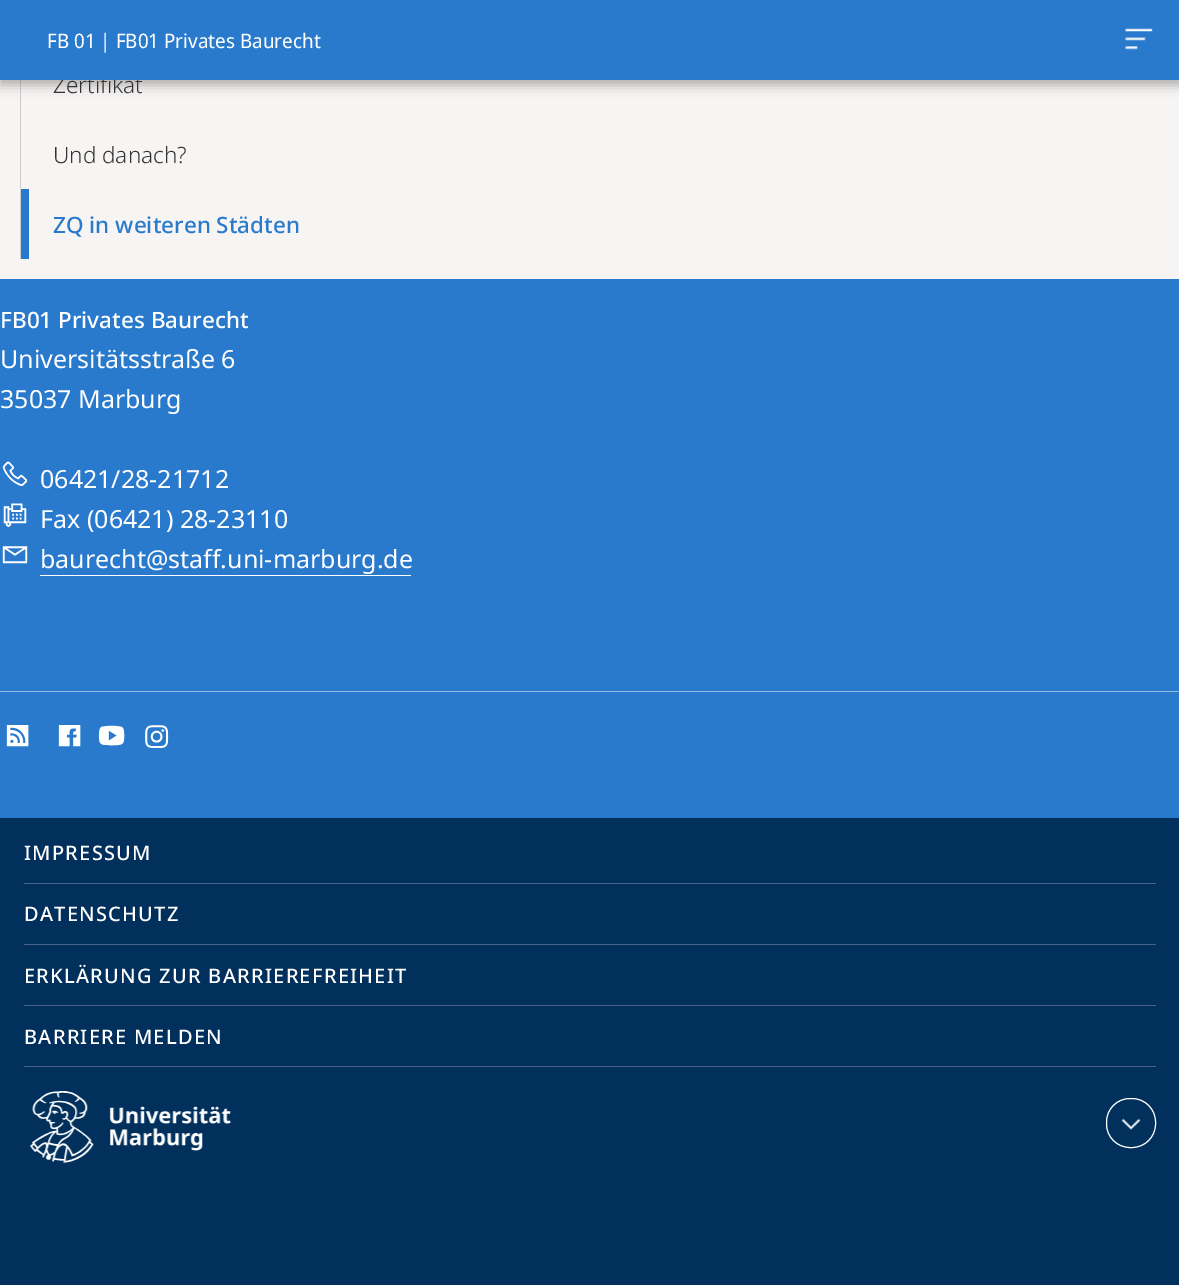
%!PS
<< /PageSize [1179 1285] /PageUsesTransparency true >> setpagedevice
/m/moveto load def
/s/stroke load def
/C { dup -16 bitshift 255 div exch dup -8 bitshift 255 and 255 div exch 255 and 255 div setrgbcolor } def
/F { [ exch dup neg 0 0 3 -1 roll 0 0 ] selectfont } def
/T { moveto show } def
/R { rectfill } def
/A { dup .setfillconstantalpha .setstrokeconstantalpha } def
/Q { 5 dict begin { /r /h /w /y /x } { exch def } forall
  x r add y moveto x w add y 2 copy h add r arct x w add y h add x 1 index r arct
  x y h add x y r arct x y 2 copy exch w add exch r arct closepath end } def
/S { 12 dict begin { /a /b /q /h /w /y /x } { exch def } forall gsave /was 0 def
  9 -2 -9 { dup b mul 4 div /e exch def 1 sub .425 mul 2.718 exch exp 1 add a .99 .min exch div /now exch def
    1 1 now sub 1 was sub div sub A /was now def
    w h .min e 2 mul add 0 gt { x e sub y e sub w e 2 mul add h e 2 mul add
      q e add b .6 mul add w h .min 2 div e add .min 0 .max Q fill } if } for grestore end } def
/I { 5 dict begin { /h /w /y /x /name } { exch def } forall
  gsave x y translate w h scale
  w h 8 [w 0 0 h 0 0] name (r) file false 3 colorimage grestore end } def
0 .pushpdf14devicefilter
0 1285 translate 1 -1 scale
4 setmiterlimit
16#00305B C
0 0 1179 1285 R
16#F7F5F4 C
0 80 1179 199 R
16#CCCCCC C
20 80 1 179 R
16#000000 C
0 5 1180 80 0 6 .3 S
/NotoSans-Light 22.5 F
16#333333 C
(Zertifikat) 53 93 T
16#297ACC C
0 0 1179 80 R
/NotoSansDisplay-Regular 20 F
16#FFFFFF C
(FB 01 | FB01 Privates Baurecht) 47 48 T
(1.rgb) 1125 28 28 22 I
/NotoSans-Light 22.5 F
16#333333 C
(Und danach?) 53 163 T
16#297ACC C
21 189 8 70 R
/NotoSans-Medium 22.5 F
(ZQ in weiteren Städten) 53 233 T
0 279 1179 539 R
16#FFFFFF C
(FB01 Privates Baurecht) 0 328 T
/NotoSans-Regular 25 F
(Universitätsstraße 6) 0 368 T
(35037 Marburg) 0 408 T
(2.rgb) 2 461 26 25 I
(06421/28-21712) 40 488 T
(3.rgb) 3 503 24 24 I
(Fax \(06421\) 28-23110) 40 528 T
(4.rgb) 2 546 26 18 I
(baurecht@staff.uni-marburg.de) 40 568 T
40 575 371 1 R
16#94BDE6 C
0 691 1179 1 R
(5.rgb) 6 725 23 22 I
(6.rgb) 58 725 23 22 I
(7.rgb) 98 725 27 21 I
(8.rgb) 145 725 24 23 I
16#4D628B C
24 883 1132 1 R
/NotoSans-Medium 20 F
16#FFFFFF C
24 860 m 1.25 0 (IMPRESSUM) ashow
16#4D628B C
24 944 1132 1 R
16#FFFFFF C
24 921 m 1.25 0 (DATENSCHUTZ) ashow
16#4D628B C
24 1005 1132 1 R
16#FFFFFF C
24 983 m 1.25 0 (ERKLÄRUNG ZUR BARRIEREFREIHEIT) ashow
16#4D628B C
24 1066 1132 1 R
16#FFFFFF C
24 1044 m 1.25 0 (BARRIERE MELDEN) ashow
(9.rgb) 30 1091 201 72 I
1106.5 1098.5 49 49 23.5 Q s
(10.rgb) 1121 1118 20 12 I
.poppdf14devicefilter showpage
